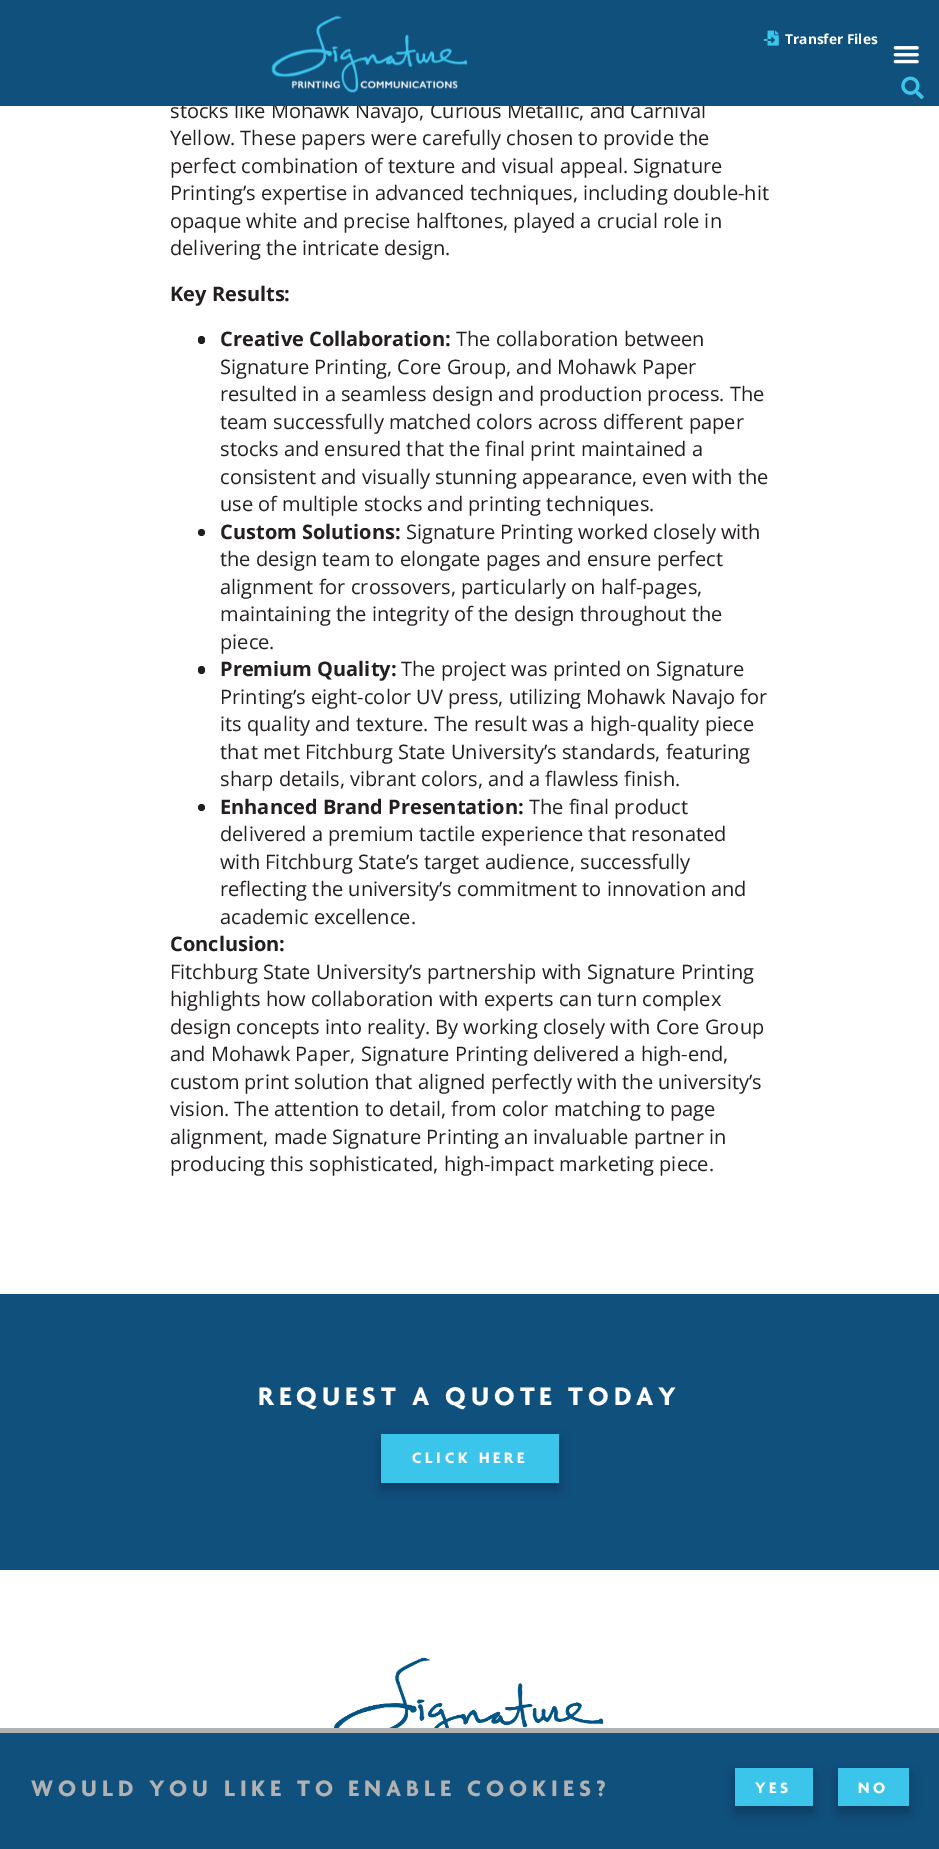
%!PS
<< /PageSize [939 1849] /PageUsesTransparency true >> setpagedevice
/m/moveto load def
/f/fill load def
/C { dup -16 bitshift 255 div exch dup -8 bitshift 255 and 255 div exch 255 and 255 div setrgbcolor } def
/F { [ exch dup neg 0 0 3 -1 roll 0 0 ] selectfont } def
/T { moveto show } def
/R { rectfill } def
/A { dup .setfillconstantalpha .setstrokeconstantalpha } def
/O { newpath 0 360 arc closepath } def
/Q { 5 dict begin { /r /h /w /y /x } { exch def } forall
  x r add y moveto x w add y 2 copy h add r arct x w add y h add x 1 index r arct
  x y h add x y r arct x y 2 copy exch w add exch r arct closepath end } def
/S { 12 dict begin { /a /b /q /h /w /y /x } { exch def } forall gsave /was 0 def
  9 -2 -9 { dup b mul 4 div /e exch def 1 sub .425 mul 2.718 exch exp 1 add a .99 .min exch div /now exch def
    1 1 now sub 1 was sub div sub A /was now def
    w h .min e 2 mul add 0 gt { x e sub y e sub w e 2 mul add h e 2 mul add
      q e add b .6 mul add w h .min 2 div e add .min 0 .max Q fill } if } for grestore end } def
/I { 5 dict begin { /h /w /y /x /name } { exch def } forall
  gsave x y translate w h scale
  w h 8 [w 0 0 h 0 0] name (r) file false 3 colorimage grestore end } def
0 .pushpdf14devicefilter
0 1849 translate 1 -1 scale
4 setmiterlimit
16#FFFFFF C
0 0 939 1849 R
/OpenSans-Regular 20 F
16#231F20 C
(stocks like Mohawk Navajo, Curious Metallic, and Carnival) 170 118 T
16#10507D C
0 0 939 106 R
(1.rgb) 271 15 197 78 I
(2.rgb) 763 30 16 16 I
/OpenSans-Bold 13.75 F
16#FFFFFF C
(Transfer Files) 785 44 T
(3.rgb) 893 46 26 18 I
(4.rgb) 901 76 23 23 I
/OpenSans-Regular 20 F
16#231F20 C
(Yellow. These papers were carefully chosen to provide the) 170 145 T
(perfect combination of texture and visual appeal. Signature) 170 173 T
(Printing’s expertise in advanced techniques, including double-hit) 170 200 T
(opaque white and precise halftones, played a crucial role in) 170 228 T
(delivering the intricate design.) 170 255 T
/OpenSans-Bold 20 F
(Key Results:) 170 301 T
198 336 7 8 3.5 Q f
(Creative Collaboration:) 220 346 T
/OpenSans-Regular 20 F
(The collaboration between) 456 346 T
(Signature Printing, Core Group, and Mohawk Paper) 220 374 T
(resulted in a seamless design and production process. The) 220 401 T
(team successfully matched colors across different paper) 220 429 T
(stocks and ensured that the final print maintained a) 220 456 T
(consistent and visually stunning appearance, even with the) 220 484 T
(use of multiple stocks and printing techniques.) 220 511 T
201.5 532.5 3.5 O f
/OpenSans-Bold 20 F
(Custom Solutions:) 220 539 T
/OpenSans-Regular 20 F
(Signature Printing worked closely with) 406 539 T
(the design team to elongate pages and ensure perfect) 220 566 T
(alignment for crossovers, particularly on half-pages,) 220 594 T
(maintaining the integrity of the design throughout the) 220 621 T
(piece.) 220 649 T
198 666 7 8 3.5 Q f
/OpenSans-Bold 20 F
(Premium Quality:) 220 676 T
/OpenSans-Regular 20 F
(The project was printed on Signature) 401 676 T
(Printing’s eight-color UV press, utilizing Mohawk Navajo for) 220 704 T
(its quality and texture. The result was a high-quality piece) 220 731 T
(that met Fitchburg State University’s standards, featuring) 220 759 T
(sharp details, vibrant colors, and a flawless finish.) 220 786 T
201.5 807.5 3.5 O f
/OpenSans-Bold 20 F
(Enhanced Brand Presentation:) 220 814 T
/OpenSans-Regular 20 F
(The final product) 529 814 T
(delivered a premium tactile experience that resonated) 220 841 T
(with Fitchburg State’s target audience, successfully) 220 869 T
(reflecting the university’s commitment to innovation and) 220 896 T
(academic excellence.) 220 924 T
/OpenSans-Bold 20 F
(Conclusion:) 170 951 T
/OpenSans-Regular 20 F
(Fitchburg State University’s partnership with Signature Printing) 170 979 T
(highlights how collaboration with experts can turn complex) 170 1006 T
(design concepts into reality. By working closely with Core Group) 170 1034 T
(and Mohawk Paper, Signature Printing delivered a high-end,) 170 1061 T
(custom print solution that aligned perfectly with the university’s) 170 1089 T
(vision. The attention to detail, from color matching to page) 170 1116 T
(alignment, made Signature Printing an invaluable partner in) 170 1144 T
(producing this sophisticated, high-impact marketing piece.) 170 1171 T
16#10507D C
0 1294 939 276 R
/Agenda-Bold 27.5 F
16#FFFFFF C
258 1405 m 5 0 (REQUEST A QUOTE TODAY) ashow
16#000000 C
381 1440 178 49 0 6 .25 S
16#3CC5EB C
381 1434 178 49 R
/Agenda-Bold 16.25 F
16#FFFFFF C
412 1463 m 3.75 0 (CLICK HERE) ashow
(5.rgb) 334 1657 270 71 I
16#10507D C
0 1733 939 116 R
16#B2B2B2 C
0 1728 939 5 R
/Agenda-Bold 24.1 F
31 1796 m 5 0 (WOULD YOU LIKE TO ENABLE COOKIES?) ashow
16#000000 C
735 1774 78 39 0 6 .25 S
16#3CC5EB C
735 1768 78 38 R
/Agenda-Bold 16.25 F
16#FFFFFF C
755 1793 m 3.75 0 (YES) ashow
16#000000 C
838 1774 71 39 0 6 .25 S
16#3CC5EB C
838 1768 71 38 R
16#FFFFFF C
858 1793 m 3.75 0 (NO) ashow
.poppdf14devicefilter showpage
